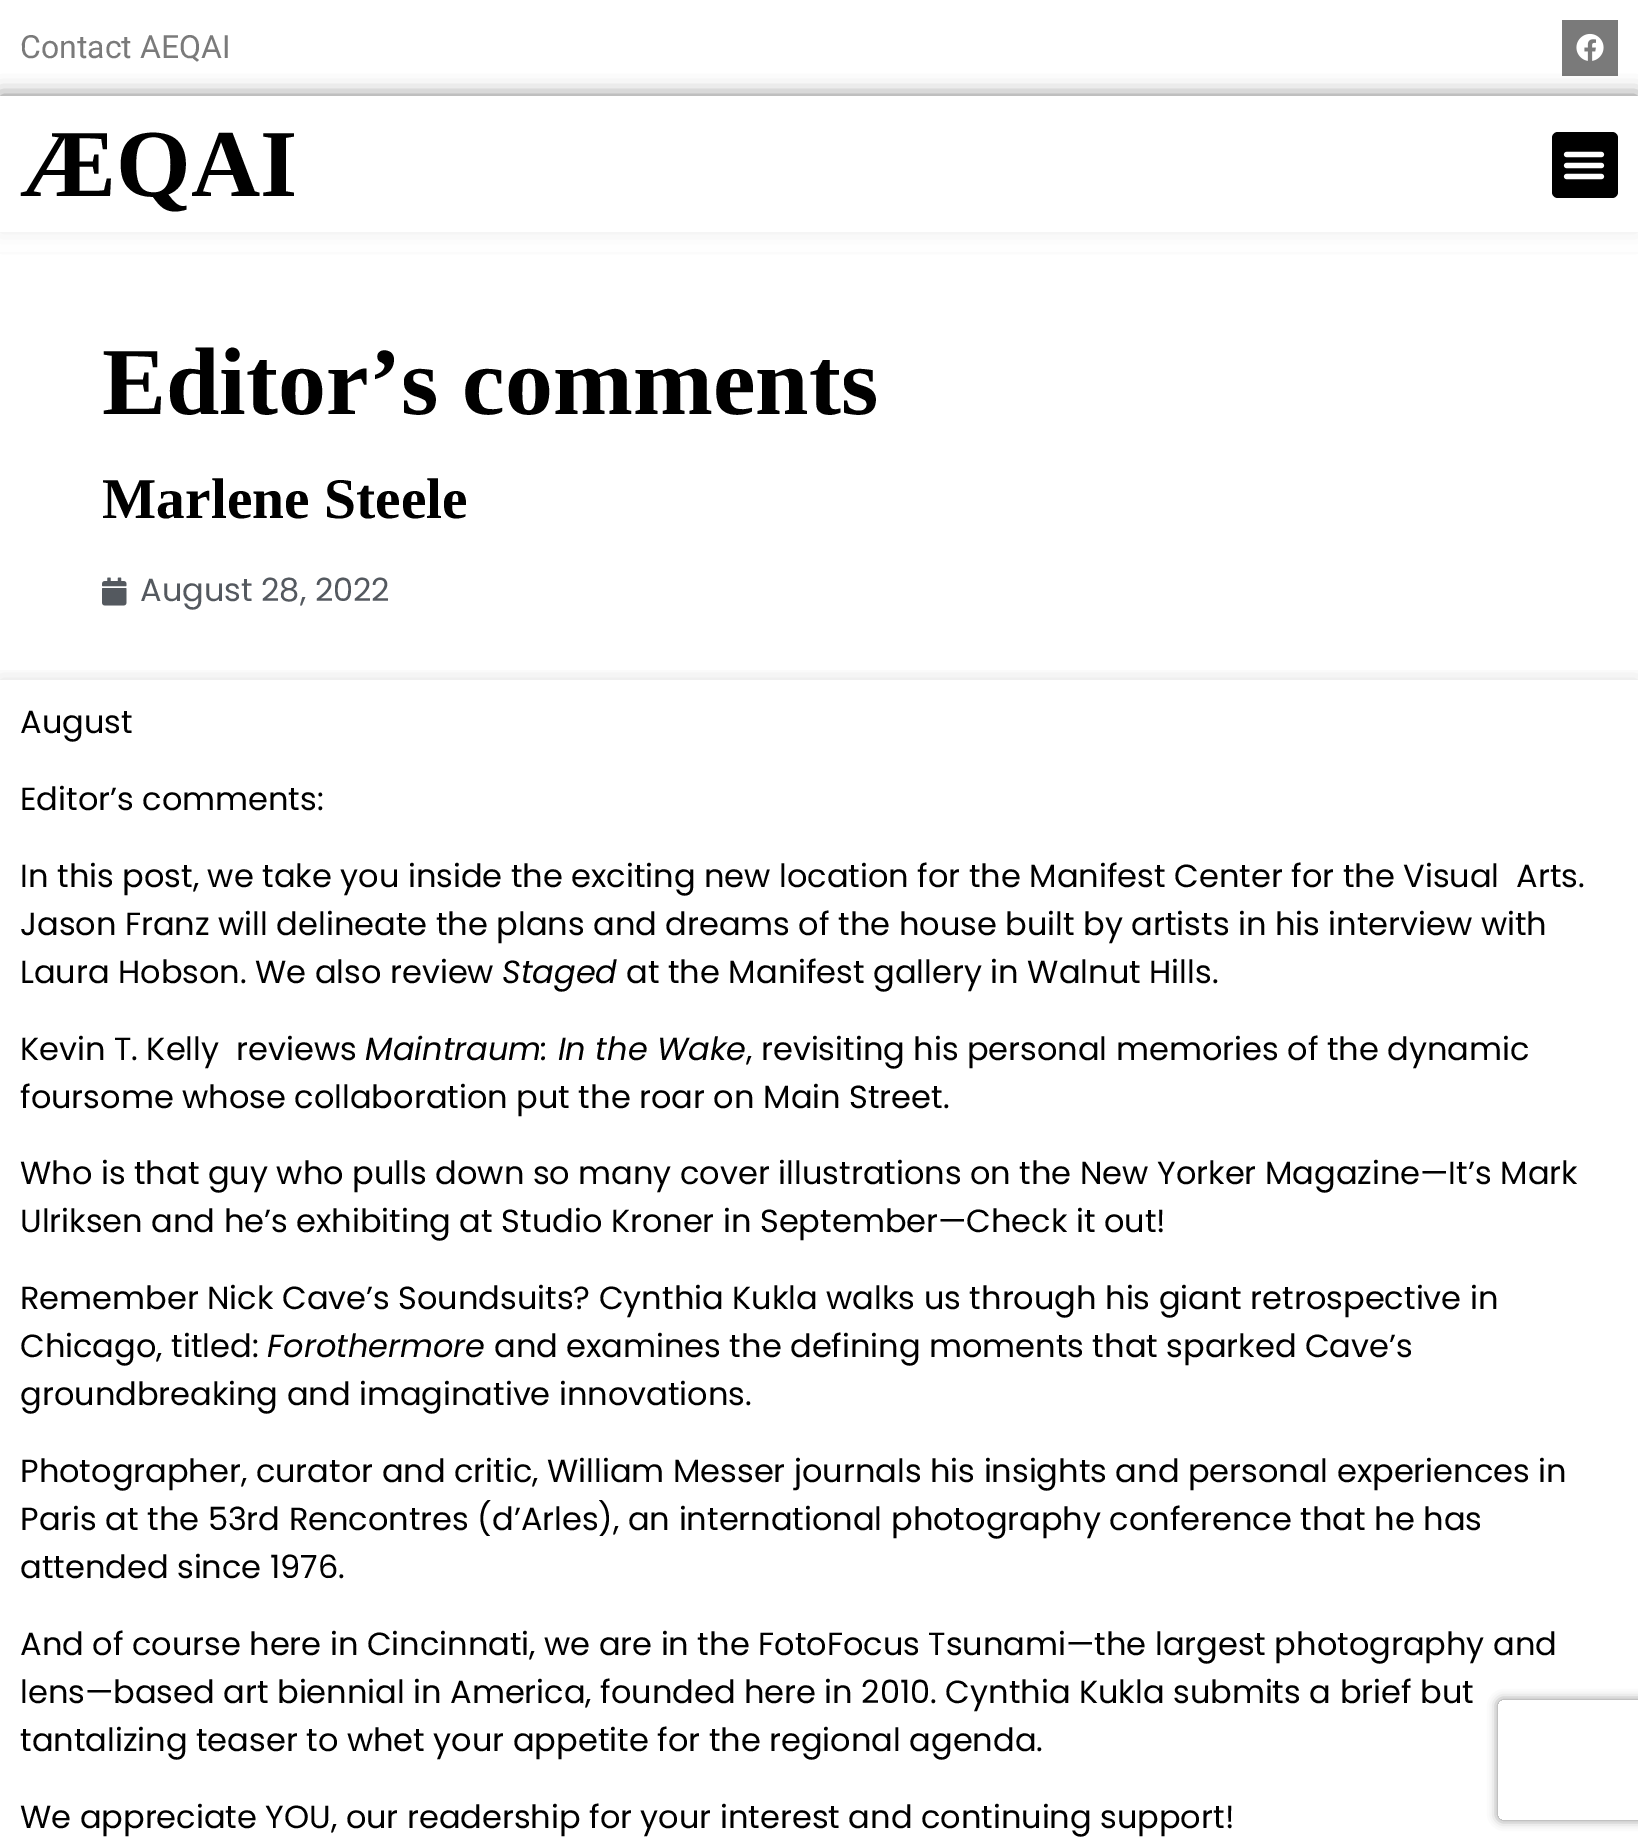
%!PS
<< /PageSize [1638 1847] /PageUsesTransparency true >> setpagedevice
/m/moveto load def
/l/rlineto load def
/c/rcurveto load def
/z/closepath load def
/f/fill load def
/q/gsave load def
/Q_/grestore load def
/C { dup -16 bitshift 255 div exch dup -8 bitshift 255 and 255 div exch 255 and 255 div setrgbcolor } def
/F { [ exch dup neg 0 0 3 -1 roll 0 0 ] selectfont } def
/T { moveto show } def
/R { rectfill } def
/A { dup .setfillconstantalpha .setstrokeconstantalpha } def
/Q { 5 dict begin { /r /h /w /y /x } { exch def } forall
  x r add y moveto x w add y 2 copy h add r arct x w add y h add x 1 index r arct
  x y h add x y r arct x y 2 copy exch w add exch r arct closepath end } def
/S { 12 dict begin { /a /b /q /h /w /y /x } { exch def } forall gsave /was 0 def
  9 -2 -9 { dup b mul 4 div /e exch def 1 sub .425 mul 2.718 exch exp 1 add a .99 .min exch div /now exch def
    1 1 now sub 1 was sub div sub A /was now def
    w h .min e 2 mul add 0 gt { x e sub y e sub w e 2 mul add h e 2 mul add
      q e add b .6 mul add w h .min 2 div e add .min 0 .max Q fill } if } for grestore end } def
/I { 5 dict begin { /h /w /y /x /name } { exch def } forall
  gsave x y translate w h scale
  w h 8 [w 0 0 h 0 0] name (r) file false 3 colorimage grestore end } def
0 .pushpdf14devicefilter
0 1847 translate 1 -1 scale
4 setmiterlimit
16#FFFFFF C
0 0 1638 1847 R
/Roboto-Regular 32 F
16#7A7A7A C
(Contact AEQAI) 20 58 T
1562 20 56 56 R
(1.rgb) 1576 33 28 28 I
q
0 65 m 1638 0 l 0 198 l -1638 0 l z 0 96 m 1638 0 l 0 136 l -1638 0 l z eoclip newpath
16#000000 C
0 96 1638 136 0 10 .5 S
Q_
/LiberationSerif-Bold 96 F
16#000000 C
(ÆQAI) 20 196 T
1552 132 66 66 6 Q f
(2.rgb) 1563 151 42 29 I
0.84 A
16#FFFFFF C
0 232 1638 20 R
1 A
16#000000 C
(Editor’s comments) 102 414 T
/LiberationSerif-Bold 57.5 F
(Marlene Steele) 102 518 T
(3.rgb) 102 577 25 29 I
/Poppins-Regular 32 F
16#54595F C
(August 28, 2022) 140 601 T
q
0 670 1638 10 rectclip
16#000000 C
0 680 1638 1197 0 10 .12 S
Q_
16#000000 C
(August) 20 733 T
(Editor’s comments:) 20 810 T
(In this post, we take you inside the exciting new location for the Manifest Center for the Visual  Arts.) 20 887 T
(Jason Franz will delineate the plans and dreams of the house built by artists in his interview with) 20 935 T
(Laura Hobson. We also review) 20 983 T
/Poppins-Italic 32 F
(Staged) 502 983 T
/Poppins-Regular 32 F
(at the Manifest gallery in Walnut Hills.) 626 983 T
(Kevin T. Kelly  reviews) 20 1060 T
/Poppins-Italic 32 F
(Maintraum: In the Wake) 365 1060 T
/Poppins-Regular 32 F
(, revisiting his personal memories of the dynamic) 746 1060 T
(foursome whose collaboration put the roar on Main Street.) 20 1108 T
(Who is that guy who pulls down so many cover illustrations on the New Yorker Magazine—It’s Mark) 20 1184 T
(Ulriksen and he’s exhibiting at Studio Kroner in September—Check it out!) 20 1232 T
(Remember Nick Cave’s Soundsuits? Cynthia Kukla walks us through his giant retrospective in) 20 1309 T
(Chicago, titled:) 20 1357 T
/Poppins-Italic 32 F
(Forothermore) 267 1357 T
/Poppins-Regular 32 F
(and examines the defining moments that sparked Cave’s) 494 1357 T
(groundbreaking and imaginative innovations.) 20 1405 T
(Photographer, curator and critic, William Messer journals his insights and personal experiences in) 20 1482 T
(Paris at the 53rd Rencontres \(d’Arles\), an international photography conference that he has) 20 1530 T
(attended since 1976.) 20 1578 T
(And of course here in Cincinnati, we are in the FotoFocus Tsunami—the largest photography and) 20 1655 T
(lens—based art biennial in America, founded here in 2010. Cynthia Kukla submits a brief but) 20 1703 T
(tantalizing teaser to whet your appetite for the regional agenda.) 20 1751 T
(We appreciate YOU, our readership for your interest and continuing support!) 20 1828 T
q
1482 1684 m 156 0 l 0 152 l -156 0 l z 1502 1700 m 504 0 l 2 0 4 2 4 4 c 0 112 l 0 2 -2 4 -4 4 c -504 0 l -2 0 -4 -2 -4 -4 c 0 -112 l 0 -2 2 -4 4 -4 c z eoclip newpath
16#808080 C
1498 1700 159 120 4 5 1 S
Q_
.poppdf14devicefilter showpage
